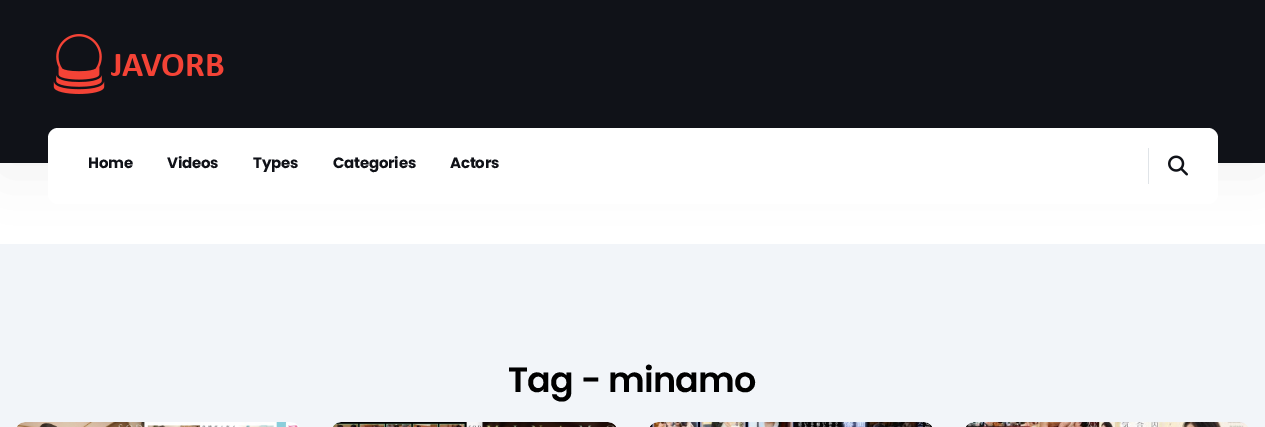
%!PS
<< /PageSize [1265 427] /PageUsesTransparency true >> setpagedevice
/m/moveto load def
/f/fill load def
/C { dup -16 bitshift 255 div exch dup -8 bitshift 255 and 255 div exch 255 and 255 div setrgbcolor } def
/F { [ exch dup neg 0 0 3 -1 roll 0 0 ] selectfont } def
/R { rectfill } def
/A { dup .setfillconstantalpha .setstrokeconstantalpha } def
/Q { 5 dict begin { /r /h /w /y /x } { exch def } forall
  x r add y moveto x w add y 2 copy h add r arct x w add y h add x 1 index r arct
  x y h add x y r arct x y 2 copy exch w add exch r arct closepath end } def
/S { 12 dict begin { /a /b /q /h /w /y /x } { exch def } forall gsave /was 0 def
  9 -2 -9 { dup b mul 4 div /e exch def 1 sub .425 mul 2.718 exch exp 1 add a .99 .min exch div /now exch def
    1 1 now sub 1 was sub div sub A /was now def
    w h .min e 2 mul add 0 gt { x e sub y e sub w e 2 mul add h e 2 mul add
      q e add b .6 mul add w h .min 2 div e add .min 0 .max Q fill } if } for grestore end } def
/I { 5 dict begin { /h /w /y /x /name } { exch def } forall
  gsave x y translate w h scale
  w h 8 [w 0 0 h 0 0] name (r) file false 3 colorimage grestore end } def
0 .pushpdf14devicefilter
0 427 translate 1 -1 scale
4 setmiterlimit
16#FFFFFF C
0 0 1265 427 R
16#F2F5F9 C
0 244 1265 183 R
16#000000 C
0 10 1265 163 0 30 .05 S
16#101218 C
0 0 1265 163 R
(1.rgb) 53 34 171 60 I
16#FFFFFF C
48 128 1170 76 10 Q f
/Poppins-Bold 15 F
16#101218 C
88 168 m -.25 0 (Home) ashow
167 168 m -.25 0 (Videos) ashow
253 168 m -.25 0 (Types) ashow
333 168 m -.25 0 (Categories) ashow
450 168 m -.25 0 (Actors) ashow
16#E0E4E8 C
1148 148 1 36 R
(2.rgb) 1168 155 20 21 I
/Poppins-SemiBold 35 F
16#000000 C
508 392 m -.75 0 (Tag - minamo) ashow
(3.rgb) 17 422 282 5 I
(4.rgb) 333 422 283 5 I
(5.rgb) 650 422 282 5 I
(6.rgb) 966 422 282 5 I
.poppdf14devicefilter showpage
